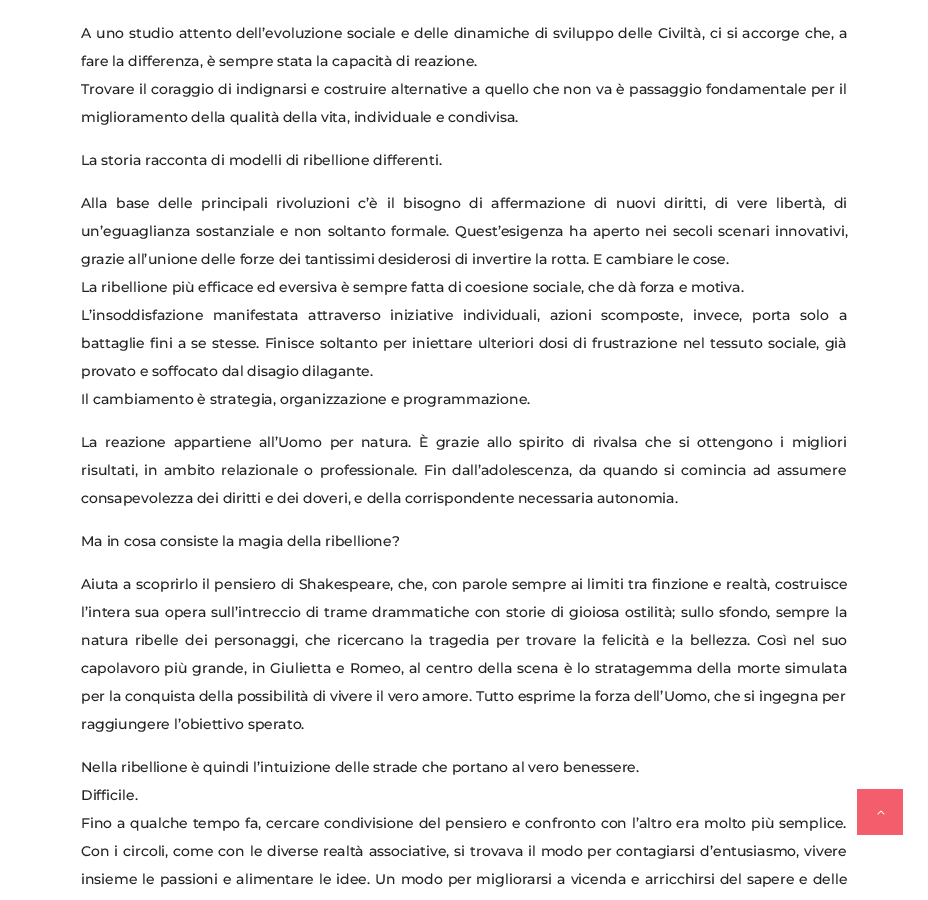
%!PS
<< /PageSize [928 900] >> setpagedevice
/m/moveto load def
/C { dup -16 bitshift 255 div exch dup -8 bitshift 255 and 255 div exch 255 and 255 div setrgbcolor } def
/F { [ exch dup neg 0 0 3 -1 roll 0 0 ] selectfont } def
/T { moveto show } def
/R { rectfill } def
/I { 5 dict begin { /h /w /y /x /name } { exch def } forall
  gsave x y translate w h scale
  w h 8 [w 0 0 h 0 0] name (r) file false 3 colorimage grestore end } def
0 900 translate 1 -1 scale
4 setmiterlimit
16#FFFFFF C
0 0 928 900 R
/Montserrat-Medium 14 F
16#222222 C
81 38 m 1.2 0 32 (A uno studio attento dell’evoluzione sociale e delle dinamiche di sviluppo delle Civiltà, ci si accorge che, a) widthshow
(fare la differenza, è sempre stata la capacità di reazione.) 81 66 T
81 94 m .5 0 32 (Trovare il coraggio di indignarsi e costruire alternative a quello che non va è passaggio fondamentale per il) widthshow
(miglioramento della qualità della vita, individuale e condivisa.) 81 122 T
(La storia racconta di modelli di ribellione differenti.) 81 165 T
81 208 m 4.9 0 32 (Alla base delle principali rivoluzioni c’è il bisogno di affermazione di nuovi diritti, di vere libertà, di) widthshow
81 236 m 1.75 0 32 (un’eguaglianza sostanziale e non soltanto formale. Quest’esigenza ha aperto nei secoli scenari innovativi,) widthshow
(grazie all’unione delle forze dei tantissimi desiderosi di invertire la rotta. E cambiare le cose.) 81 264 T
(La ribellione più efficace ed eversiva è sempre fatta di coesione sociale, che dà forza e motiva.) 81 292 T
81 320 m 6 0 32 (L’insoddisfazione manifestata attraverso iniziative individuali, azioni scomposte, invece, porta solo a) widthshow
81 348 m 1.5 0 32 (battaglie fini a se stesse. Finisce soltanto per iniettare ulteriori dosi di frustrazione nel tessuto sociale, già) widthshow
(provato e soffocato dal disagio dilagante.) 81 376 T
(Il cambiamento è strategia, organizzazione e programmazione.) 81 404 T
81 447 m 3.75 0 32 (La reazione appartiene all’Uomo per natura. È grazie allo spirito di rivalsa che si ottengono i migliori) widthshow
81 475 m 2.4 0 32 (risultati, in ambito relazionale o professionale. Fin dall’adolescenza, da quando si comincia ad assumere) widthshow
(consapevolezza dei diritti e dei doveri, e della corrispondente necessaria autonomia.) 81 503 T
(Ma in cosa consiste la magia della ribellione?) 81 546 T
81 589 m .7 0 32 (Aiuta a scoprirlo il pensiero di Shakespeare, che, con parole sempre ai limiti tra finzione e realtà, costruisce) widthshow
81 617 m 1.2 0 32 (l’intera sua opera sull’intreccio di trame drammatiche con storie di gioiosa ostilità; sullo sfondo, sempre la) widthshow
81 645 m 2.75 0 32 (natura ribelle dei personaggi, che ricercano la tragedia per trovare la felicità e la bellezza. Così nel suo) widthshow
81 673 m 1.25 0 32 (capolavoro più grande, in Giulietta e Romeo, al centro della scena è lo stratagemma della morte simulata) widthshow
(per la conquista della possibilità di vivere il vero amore. Tutto esprime la forza dell’Uomo, che si ingegna per) 81 701 T
(raggiungere l’obiettivo sperato.) 81 729 T
(Nella ribellione è quindi l’intuizione delle strade che portano al vero benessere.) 81 772 T
(Difficile.) 81 800 T
81 828 m 1.1 0 32 (Fino a qualche tempo fa, cercare condivisione del pensiero e confronto con l’altro era molto più semplice.) widthshow
81 856 m 1.1 0 32 (Con i circoli, come con le diverse realtà associative, si trovava il modo per contagiarsi d’entusiasmo, vivere) widthshow
81 884 m 1.2 0 32 (insieme le passioni e alimentare le idee. Un modo per migliorarsi a vicenda e arricchirsi del sapere e delle) widthshow
16#F45E6C C
857 789 46 46 R
(1.rgb) 877 810 8 5 I
showpage
